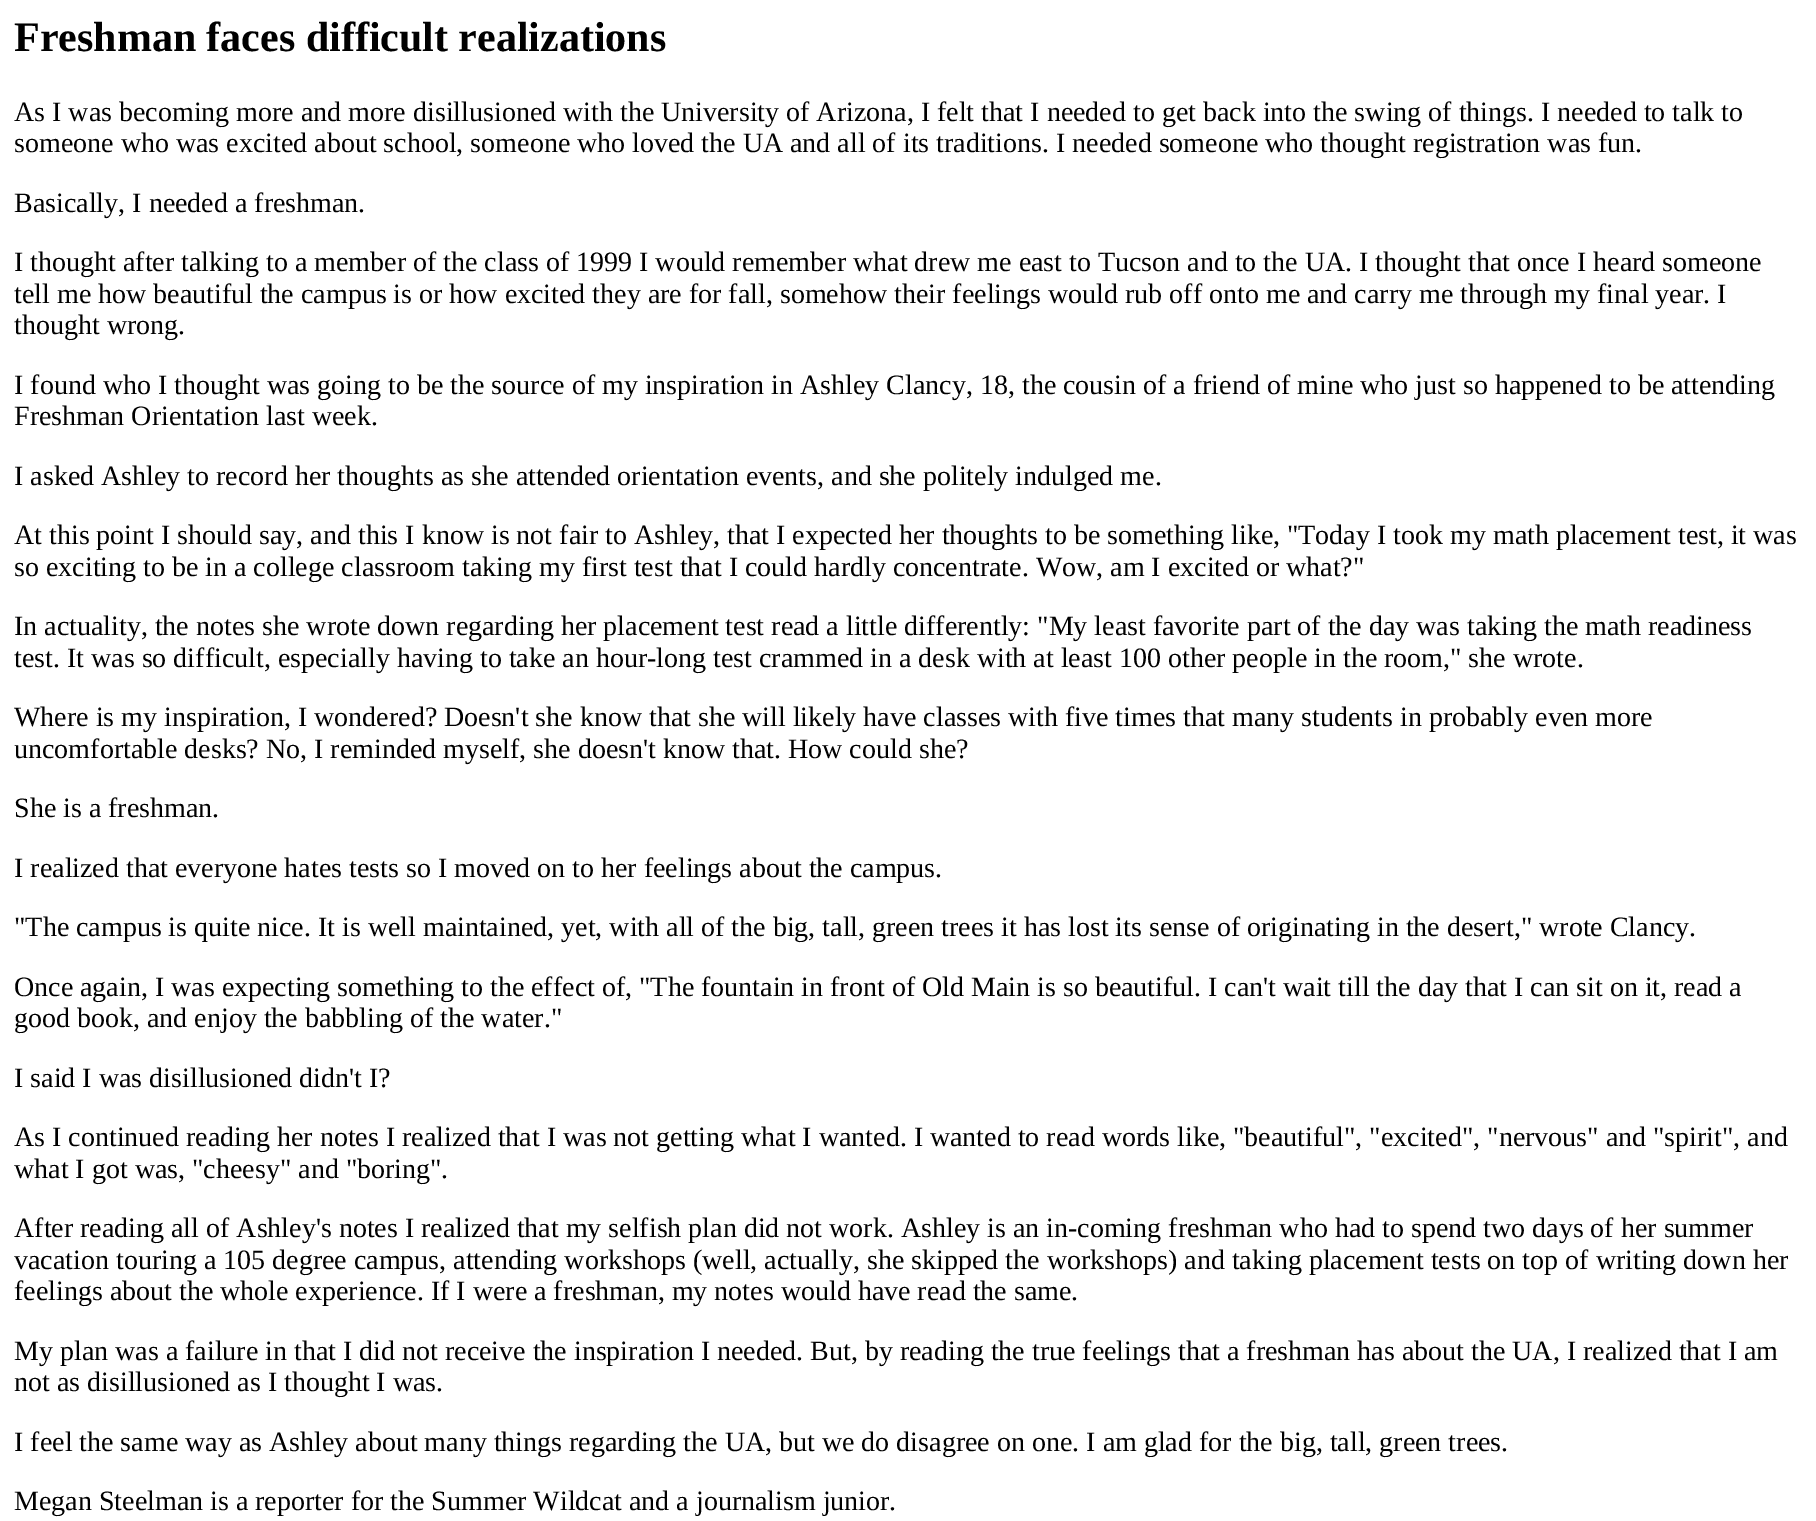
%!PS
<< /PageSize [1816 1521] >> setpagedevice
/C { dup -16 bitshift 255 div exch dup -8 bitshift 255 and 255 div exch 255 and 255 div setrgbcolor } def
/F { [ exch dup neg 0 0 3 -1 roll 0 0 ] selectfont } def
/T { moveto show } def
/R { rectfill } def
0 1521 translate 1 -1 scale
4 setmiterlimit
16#FFFFFF C
0 0 1816 1521 R
/LiberationSerif-Bold 42 F
16#000000 C
(Freshman faces difficult realizations) 14 51 T
/LiberationSerif-Regular 28 F
(As I was becoming more and more disillusioned with the University of Arizona, I felt that I needed to get back into the swing of things. I needed to talk to) 14 121 T
(someone who was excited about school, someone who loved the UA and all of its traditions. I needed someone who thought registration was fun.) 14 152 T
(Basically, I needed a freshman.) 14 212 T
(I thought after talking to a member of the class of 1999 I would remember what drew me east to Tucson and to the UA. I thought that once I heard someone) 14 271 T
(tell me how beautiful the campus is or how excited they are for fall, somehow their feelings would rub off onto me and carry me through my final year. I) 14 303 T
(thought wrong.) 14 334 T
(I found who I thought was going to be the source of my inspiration in Ashley Clancy, 18, the cousin of a friend of mine who just so happened to be attending) 14 394 T
(Freshman Orientation last week.) 14 425 T
(I asked Ashley to record her thoughts as she attended orientation events, and she politely indulged me.) 14 485 T
(At this point I should say, and this I know is not fair to Ashley, that I expected her thoughts to be something like, "Today I took my math placement test, it was) 14 544 T
(so exciting to be in a college classroom taking my first test that I could hardly concentrate. Wow, am I excited or what?") 14 576 T
(In actuality, the notes she wrote down regarding her placement test read a little differently: "My least favorite part of the day was taking the math readiness) 14 635 T
(test. It was so difficult, especially having to take an hour-long test crammed in a desk with at least 100 other people in the room," she wrote.) 14 667 T
(Where is my inspiration, I wondered? Doesn't she know that she will likely have classes with five times that many students in probably even more) 14 726 T
(uncomfortable desks? No, I reminded myself, she doesn't know that. How could she?) 14 758 T
(She is a freshman.) 14 817 T
(I realized that everyone hates tests so I moved on to her feelings about the campus.) 14 877 T
("The campus is quite nice. It is well maintained, yet, with all of the big, tall, green trees it has lost its sense of originating in the desert," wrote Clancy.) 14 936 T
(Once again, I was expecting something to the effect of, "The fountain in front of Old Main is so beautiful. I can't wait till the day that I can sit on it, read a) 14 996 T
(good book, and enjoy the babbling of the water.") 14 1027 T
(I said I was disillusioned didn't I?) 14 1087 T
(As I continued reading her notes I realized that I was not getting what I wanted. I wanted to read words like, "beautiful", "excited", "nervous" and "spirit", and) 14 1146 T
(what I got was, "cheesy" and "boring".) 14 1178 T
(After reading all of Ashley's notes I realized that my selfish plan did not work. Ashley is an in-coming freshman who had to spend two days of her summer) 14 1237 T
(vacation touring a 105 degree campus, attending workshops \(well, actually, she skipped the workshops\) and taking placement tests on top of writing down her) 14 1269 T
(feelings about the whole experience. If I were a freshman, my notes would have read the same.) 14 1300 T
(My plan was a failure in that I did not receive the inspiration I needed. But, by reading the true feelings that a freshman has about the UA, I realized that I am) 14 1360 T
(not as disillusioned as I thought I was.) 14 1391 T
(I feel the same way as Ashley about many things regarding the UA, but we do disagree on one. I am glad for the big, tall, green trees.) 14 1451 T
(Megan Steelman is a reporter for the Summer Wildcat and a journalism junior.) 14 1510 T
showpage
